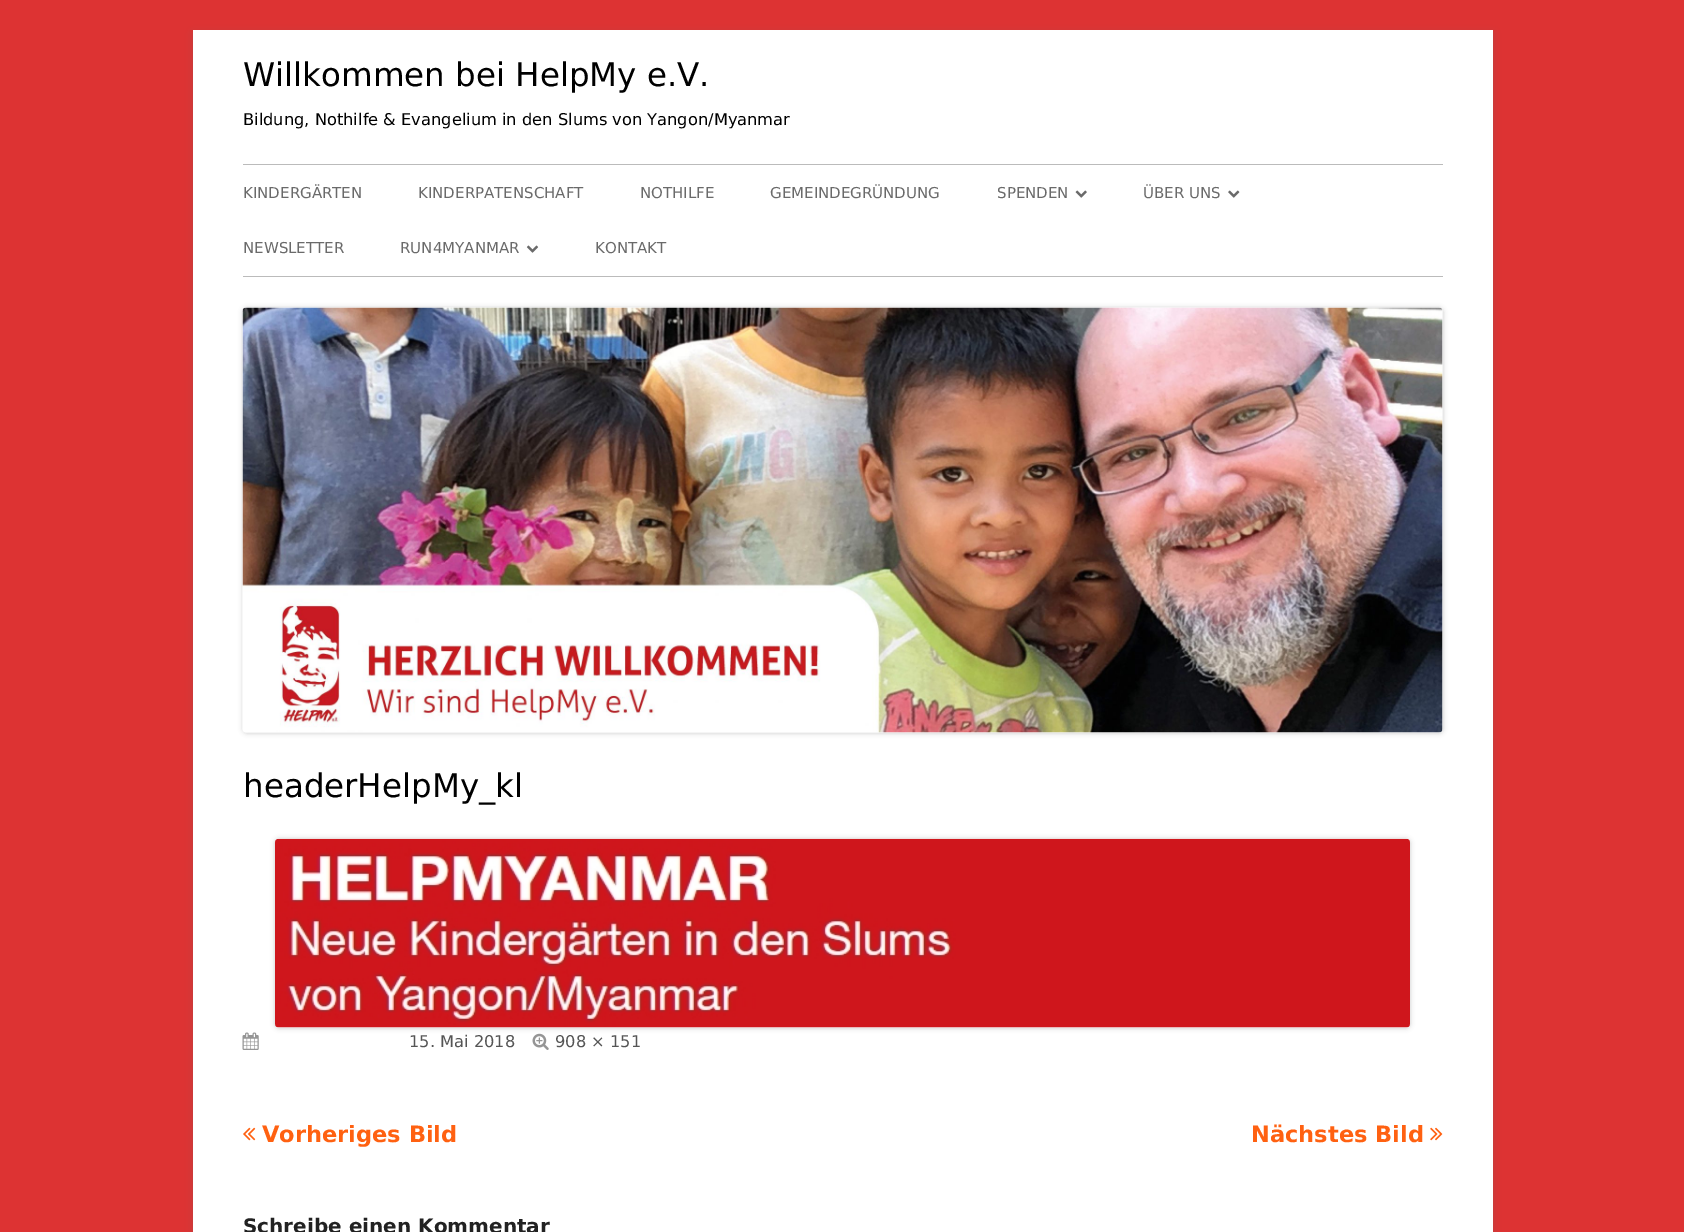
%!PS
<< /PageSize [1684 1232] /PageUsesTransparency true >> setpagedevice
/C { dup -16 bitshift 255 div exch dup -8 bitshift 255 and 255 div exch 255 and 255 div setrgbcolor } def
/F { [ exch dup neg 0 0 3 -1 roll 0 0 ] selectfont } def
/T { moveto show } def
/R { rectfill } def
/A { dup .setfillconstantalpha .setstrokeconstantalpha } def
/Q { 5 dict begin { /r /h /w /y /x } { exch def } forall
  x r add y moveto x w add y 2 copy h add r arct x w add y h add x 1 index r arct
  x y h add x y r arct x y 2 copy exch w add exch r arct closepath end } def
/S { 12 dict begin { /a /b /q /h /w /y /x } { exch def } forall gsave /was 0 def
  9 -2 -9 { dup b mul 4 div /e exch def 1 sub .425 mul 2.718 exch exp 1 add a .99 .min exch div /now exch def
    1 1 now sub 1 was sub div sub A /was now def
    w h .min e 2 mul add 0 gt { x e sub y e sub w e 2 mul add h e 2 mul add
      q e add b .6 mul add w h .min 2 div e add .min 0 .max Q fill } if } for grestore end } def
/I { 5 dict begin { /h /w /y /x /name } { exch def } forall
  gsave x y translate w h scale
  w h 8 [w 0 0 h 0 0] name (r) file false 3 colorimage grestore end } def
0 .pushpdf14devicefilter
0 1232 translate 1 -1 scale
4 setmiterlimit
16#DD3333 C
0 0 1684 1232 R
16#646464 C
193 33 1300 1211 0 4 .3 S
16#FFFFFF C
193 30 1300 1202 R
/DejaVuSans-Regular 32.5 F
16#000000 C
(Willkommen bei HelpMy e.V.) 243 86 T
/DejaVuSans-Regular 16.25 F
(Bildung, Nothilfe & Evangelium in den Slums von Yangon/Myanmar) 243 125 T
16#BBBBBB C
243 164 1200 1 R
243 276 1200 1 R
/DejaVuSans-Regular 15 F
16#6A6A6A C
(KINDERGÄRTEN) 243 198 T
(KINDERPATENSCHAFT) 418 198 T
(NOTHILFE) 640 198 T
(GEMEINDEGRÜNDUNG) 770 198 T
(SPENDEN) 997 198 T
(1.rgb) 1075 190 12 8 I
(ÜBER UNS) 1143 198 T
(2.rgb) 1228 190 12 8 I
(NEWSLETTER) 243 253 T
(RUN4MYANMAR) 400 253 T
(3.rgb) 526 245 13 8 I
(KONTAKT) 595 253 T
16#000000 C
243 308 1200 425 4 2.5 .2 S
(4.rgb) 242 307 1201 426 I
/DejaVuSans-Regular 32.5 F
(headerHelpMy_kl) 243 797 T
275 839 1135 189 4 2.5 .2 S
(5.rgb) 275 838 1135 190 I
(6.rgb) 242 1032 17 18 I
/DejaVuSans-Regular 16.25 F
16#555555 C
(15. Mai 2018) 409 1047 T
(7.rgb) 532 1033 17 17 I
(908 × 151) 555 1047 T
(8.rgb) 243 1127 13 14 I
/DejaVuSans-Bold 22.5 F
16#FF6111 C
(Vorheriges Bild) 262 1142 T
(Nächstes Bild) 1251 1142 T
(9.rgb) 1430 1127 13 14 I
/DejaVuSans-Bold 20 F
16#222222 C
(Schreibe einen Kommentar) 243 1233 T
.poppdf14devicefilter showpage
